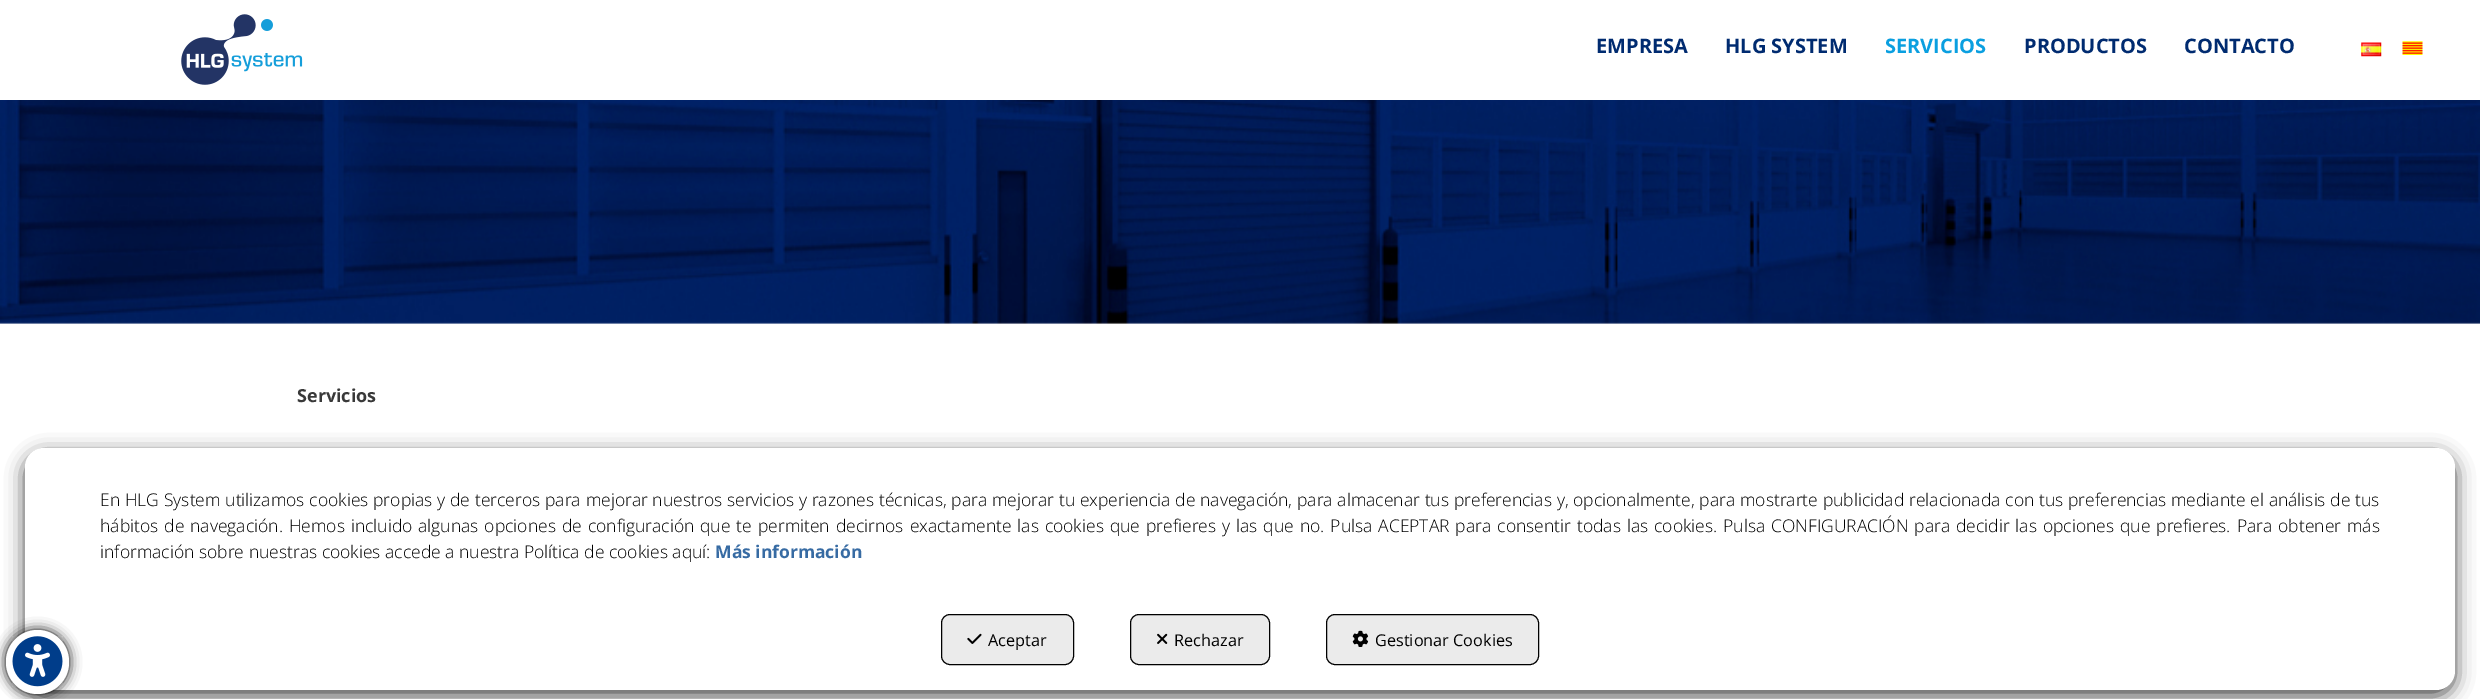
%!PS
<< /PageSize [2480 699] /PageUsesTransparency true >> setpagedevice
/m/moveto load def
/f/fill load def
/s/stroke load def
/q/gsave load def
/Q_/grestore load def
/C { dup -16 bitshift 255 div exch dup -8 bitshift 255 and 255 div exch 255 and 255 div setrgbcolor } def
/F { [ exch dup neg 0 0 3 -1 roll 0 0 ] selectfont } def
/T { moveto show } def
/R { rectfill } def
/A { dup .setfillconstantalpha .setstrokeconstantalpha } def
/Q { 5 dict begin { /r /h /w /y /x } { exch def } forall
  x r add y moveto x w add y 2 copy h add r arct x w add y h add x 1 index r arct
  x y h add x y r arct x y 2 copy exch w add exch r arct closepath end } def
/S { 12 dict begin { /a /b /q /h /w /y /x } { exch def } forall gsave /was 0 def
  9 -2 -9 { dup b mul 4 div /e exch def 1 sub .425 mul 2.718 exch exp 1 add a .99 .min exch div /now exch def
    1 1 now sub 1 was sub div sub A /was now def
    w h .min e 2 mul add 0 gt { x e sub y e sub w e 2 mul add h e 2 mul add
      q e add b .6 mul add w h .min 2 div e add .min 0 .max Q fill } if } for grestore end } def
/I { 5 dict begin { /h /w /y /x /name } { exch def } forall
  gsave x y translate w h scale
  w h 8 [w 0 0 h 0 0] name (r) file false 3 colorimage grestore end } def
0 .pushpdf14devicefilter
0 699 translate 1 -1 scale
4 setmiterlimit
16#FFFFFF C
0 0 2480 699 R
(1.rgb) 181 14 122 71 I
/OpenSans-Bold 20 F
16#002B70 C
(EMPRESA) 1596 53 T
(HLG SYSTEM) 1725 53 T
16#0A9FE0 C
(SERVICIOS) 1885 53 T
16#002B70 C
(PRODUCTOS) 2024 53 T
(CONTACTO) 2184 53 T
(2.rgb) 2361 42 21 15 I
(3.rgb) 2402 41 21 14 I
(4.rgb) 0 100 2480 224 I
/OpenSans-Bold 18 F
16#393939 C
(Servicios) 297 402 T
16#454545 C
25 454 2430 242 19 9.5 1 S
16#FFFFFF C
25 448 2430 242 19 Q f
16#000000 C
6 630 63 64 31.5 6 1 S
16#FFFFFF C
6 630 63 64 31.5 Q f
(5.rgb) 12 636 51 51 I
/OpenSans-Light 17.5 F
16#000000 C
100 506 m .25 0 32 (En HLG System utilizamos cookies propias y de terceros para mejorar nuestros servicios y razones técnicas, para mejorar tu experiencia de navegación, para almacenar tus preferencias y, opcionalmente, para mostrarte publicidad relacionada con tus preferencias mediante el análisis de tus) widthshow
100 532 m 1.4 0 32 (hábitos de navegación. Hemos incluido algunas opciones de configuración que te permiten decirnos exactamente las cookies que prefieres y las que no. Pulsa ACEPTAR para consentir todas las cookies. Pulsa CONFIGURACIÓN para decidir las opciones que prefieres. Para obtener más) widthshow
(información sobre nuestras cookies accede a nuestra Política de cookies aquí:) 100 558 T
/OpenSans-Bold 17.5 F
16#376BA3 C
(Más información) 715 558 T
16#EBEBEB C
941.5 614.5 132 50 8.5 Q q f Q_
16#000000 C
s
(6.rgb) 967 633 15 11 I
/OpenSans-Regular 16.25 F
(Aceptar) 988 646 T
16#EBEBEB C
1130.5 614.5 139 50 8.5 Q q f Q_
16#000000 C
s
(7.rgb) 1157 633 11 11 I
(Rechazar) 1174 646 T
16#EBEBEB C
1326.5 614.5 212 50 8.5 Q q f Q_
16#000000 C
s
(8.rgb) 1352 630 17 17 I
(Gestionar Cookies) 1375 646 T
.poppdf14devicefilter showpage
